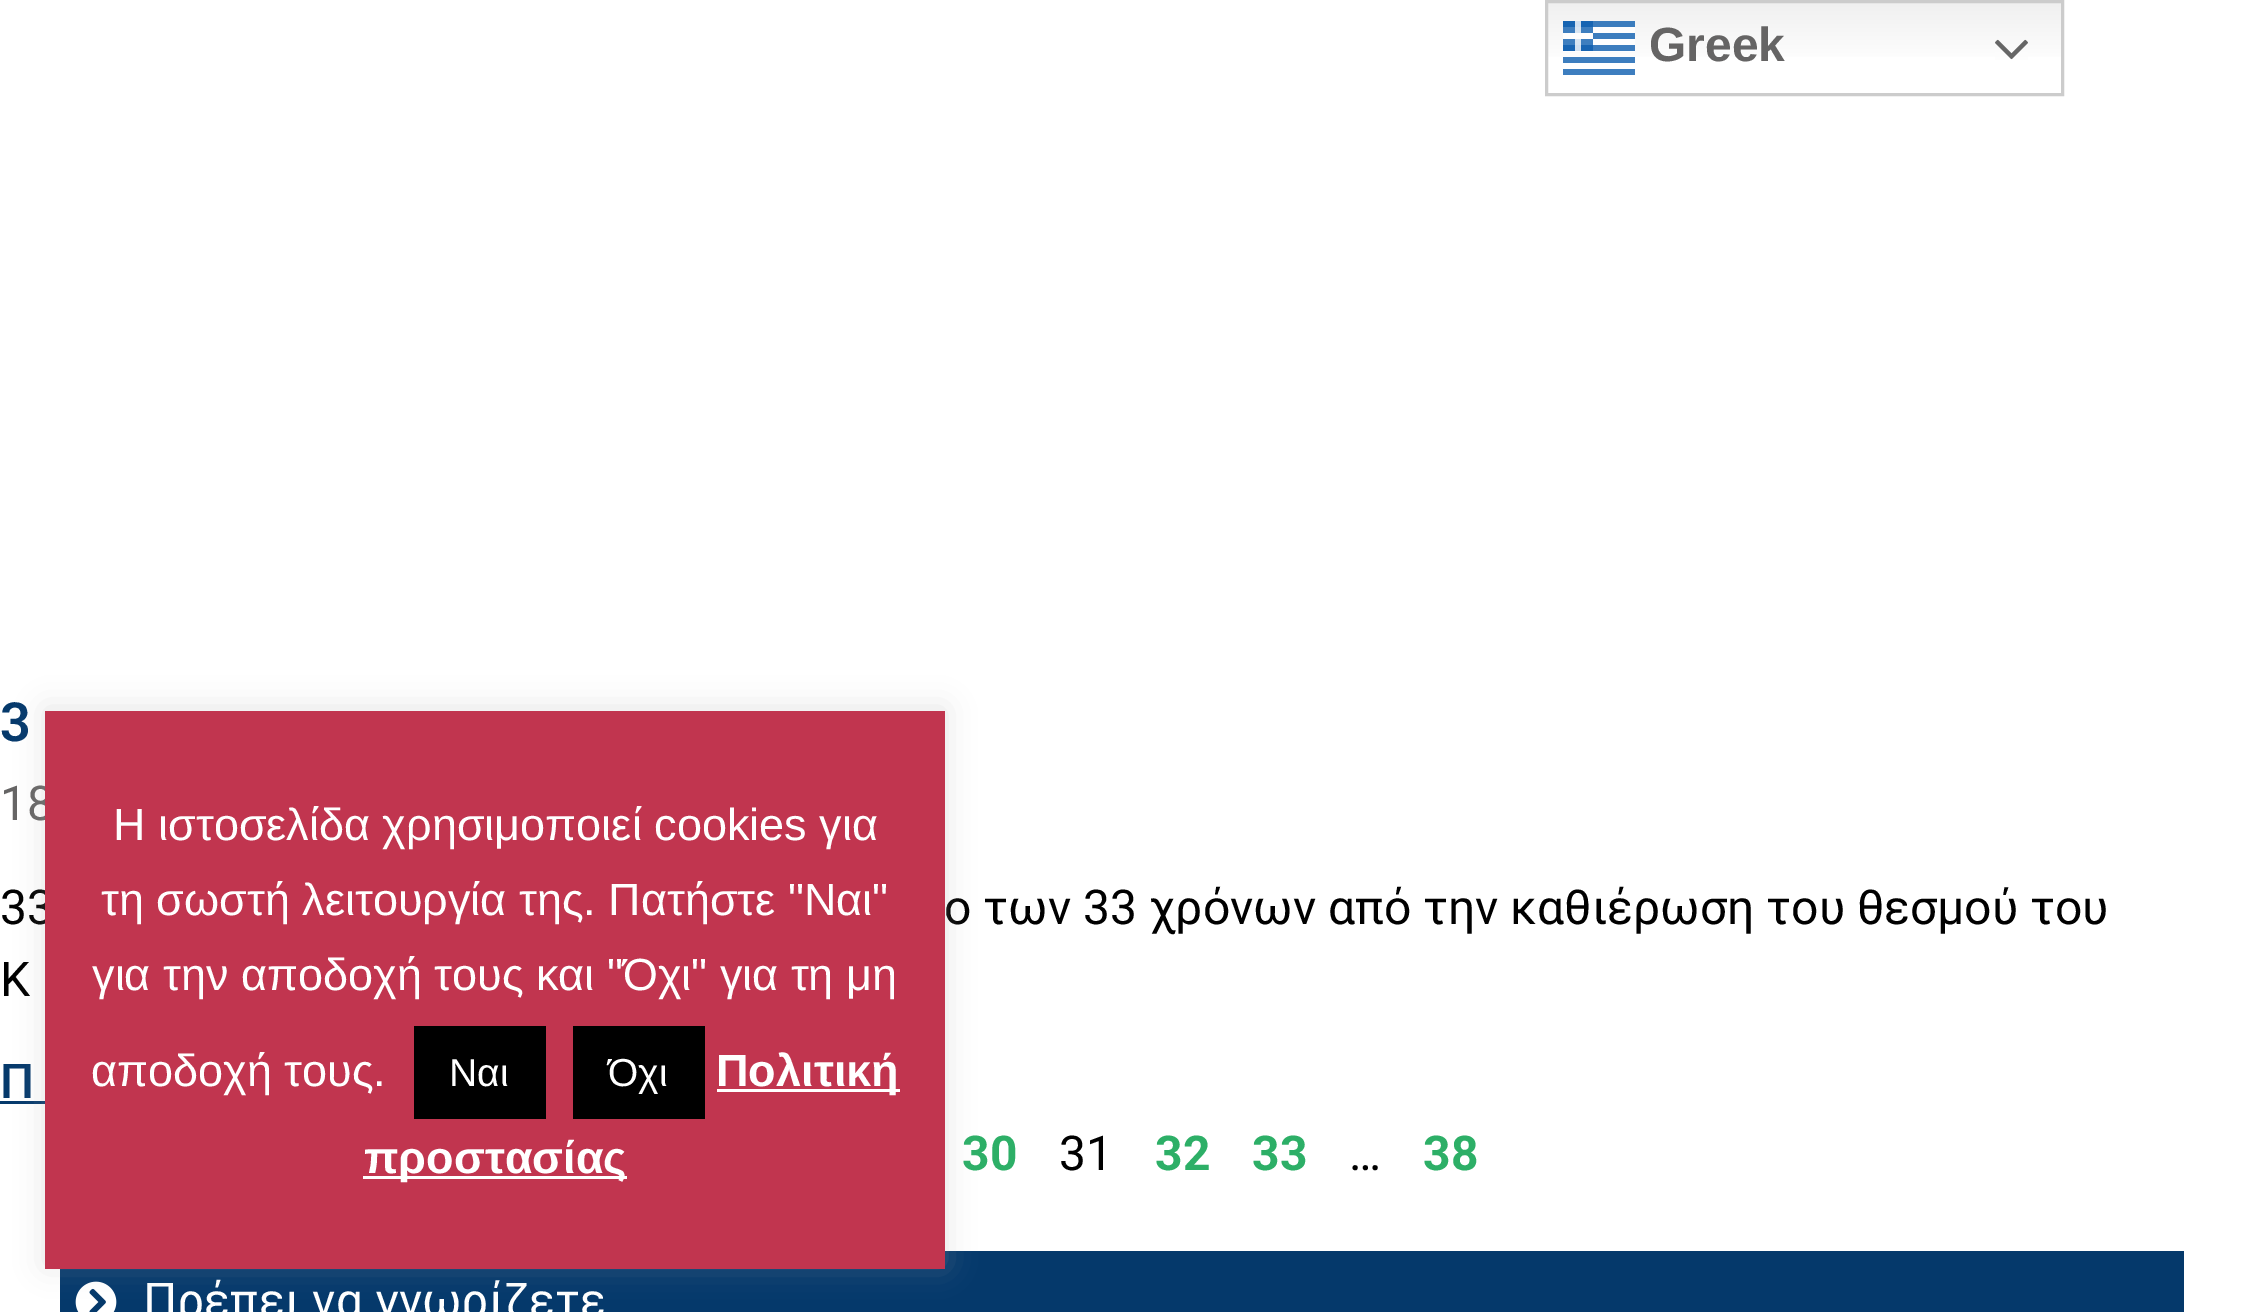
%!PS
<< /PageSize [2244 1312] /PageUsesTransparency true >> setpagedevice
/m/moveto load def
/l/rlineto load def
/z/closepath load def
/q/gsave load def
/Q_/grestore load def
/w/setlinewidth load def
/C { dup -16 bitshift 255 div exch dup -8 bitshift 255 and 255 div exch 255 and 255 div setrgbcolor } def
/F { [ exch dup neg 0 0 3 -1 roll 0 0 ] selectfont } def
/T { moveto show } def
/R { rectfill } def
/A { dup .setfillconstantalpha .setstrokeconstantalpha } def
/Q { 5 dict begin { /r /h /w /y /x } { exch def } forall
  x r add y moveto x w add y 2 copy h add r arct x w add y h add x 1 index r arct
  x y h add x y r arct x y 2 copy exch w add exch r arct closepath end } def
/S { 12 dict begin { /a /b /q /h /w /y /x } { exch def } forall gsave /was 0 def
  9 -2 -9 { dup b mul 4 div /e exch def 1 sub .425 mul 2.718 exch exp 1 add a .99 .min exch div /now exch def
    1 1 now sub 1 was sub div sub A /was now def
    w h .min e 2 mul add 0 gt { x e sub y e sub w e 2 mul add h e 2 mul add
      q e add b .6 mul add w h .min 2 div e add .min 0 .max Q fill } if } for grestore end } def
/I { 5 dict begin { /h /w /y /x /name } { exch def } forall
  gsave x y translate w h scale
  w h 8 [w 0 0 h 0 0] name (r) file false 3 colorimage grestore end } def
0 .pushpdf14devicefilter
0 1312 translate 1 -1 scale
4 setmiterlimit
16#FFFFFF C
0 0 2244 1312 R
q 1548 3 m 513 0 l 0 54 l -513 0 l z clip newpath
<< /ShadingType 2 /ColorSpace /DeviceRGB /Coords [1805 0 1805 96] /Extend [true true] /Function << /FunctionType 3 /Domain [0 1] /Functions [<< /FunctionType 2 /Domain [0 1] /C0 [.937 .937 .937] /C1 [1 1 1] /N 1 >> << /FunctionType 2 /Domain [0 1] /C0 [1 1 1] /C1 [1 1 1] /N 1 >>] /Bounds [.7] /Encode [0 1 0 1] >> >> shfill Q_
16#CCCCCC C
3 w
1546.5 1.5 516 93 rectstroke
16#3B7CBD C
1563 21 72 6 R
16#FDFDFD C
1563 27 72 6 R
16#3C7DBE C
1593 33 42 6 R
16#FEFEFE C
1563 39 72 6 R
16#3D7DBE C
1563 45 72 6 R
16#FEFEFE C
1563 51 72 1 R
16#3D7EBF C
1563 57 72 6 R
0.8 A
16#0D5EAF C
1563 21 m 0 30 l 30 0 l 0 -30 l z 1563 69 m 0 6 l 72 0 l 0 -6 l z eofill
16#FFFFFF C
1575 21 6 30 R
/LiberationSans-Bold 48 F
1 A
16#656464 C
(Greek) 1649 61 T
16#FEFEFE C
1563 33 30 6 R
(1.rgb) 1995 39 33 21 I
/Roboto-SemiBold 54 F
16#05396B C
(3) 0 741 T
/Roboto-Regular 48 F
16#656464 C
(18) 0 820 T
16#000000 C
(33) 0 924 T
(ο των 33 χρόνων από την καθιέρωση του θεσμού του) 944 924 T
(Κ) 0 996 T
/Roboto-Medium 48 F
16#05396B C
(Π) 0 1098 T
0 1101 45 3 R
/Roboto-Bold 48 F
16#2DAF67 C
(30) 962 1170 T
/Roboto-Regular 48 F
16#000000 C
(31) 1059 1170 T
/Roboto-Bold 48 F
16#2DAF67 C
(32) 1155 1170 T
(33) 1252 1170 T
/Roboto-Regular 48 F
16#000000 C
(…) 1349 1170 T
/Roboto-Bold 48 F
16#2DAF67 C
(38) 1423 1170 T
16#05396B C
60 1251 2124 61 R
(2.rgb) 75 1281 42 31 I
/Roboto-Regular 48 F
16#FFFFFF C
(Πρέπει να γνωρίζετε) 143 1317 T
16#ACABAB C
45 708 900 558 0 15 .3 S
16#C1354F C
45 711 900 558 R
/LiberationSans-Regular 45 F
16#FFFFFF C
(Η ιστοσελίδα χρησιμοποιεί cookies για) 113 840 T
(τη σωστή λειτουργία της. Πατήστε "Ναι") 101 915 T
(για την αποδοχή τους και "Όχι" για τη μη) 92 990 T
(αποδοχή τους.) 91 1086 T
16#000000 C
414 1026 132 93 R
/LiberationSans-Regular 39 F
16#FFFFFF C
(Ναι) 449 1086 T
16#000000 C
573 1026 132 93 R
16#FFFFFF C
(Όχι) 608 1086 T
717 1089 183 3 R
/LiberationSans-Bold 45 F
(Πολιτική) 716 1086 T
363 1176 264 3 R
(προστασίας) 364 1173 T
.poppdf14devicefilter showpage
